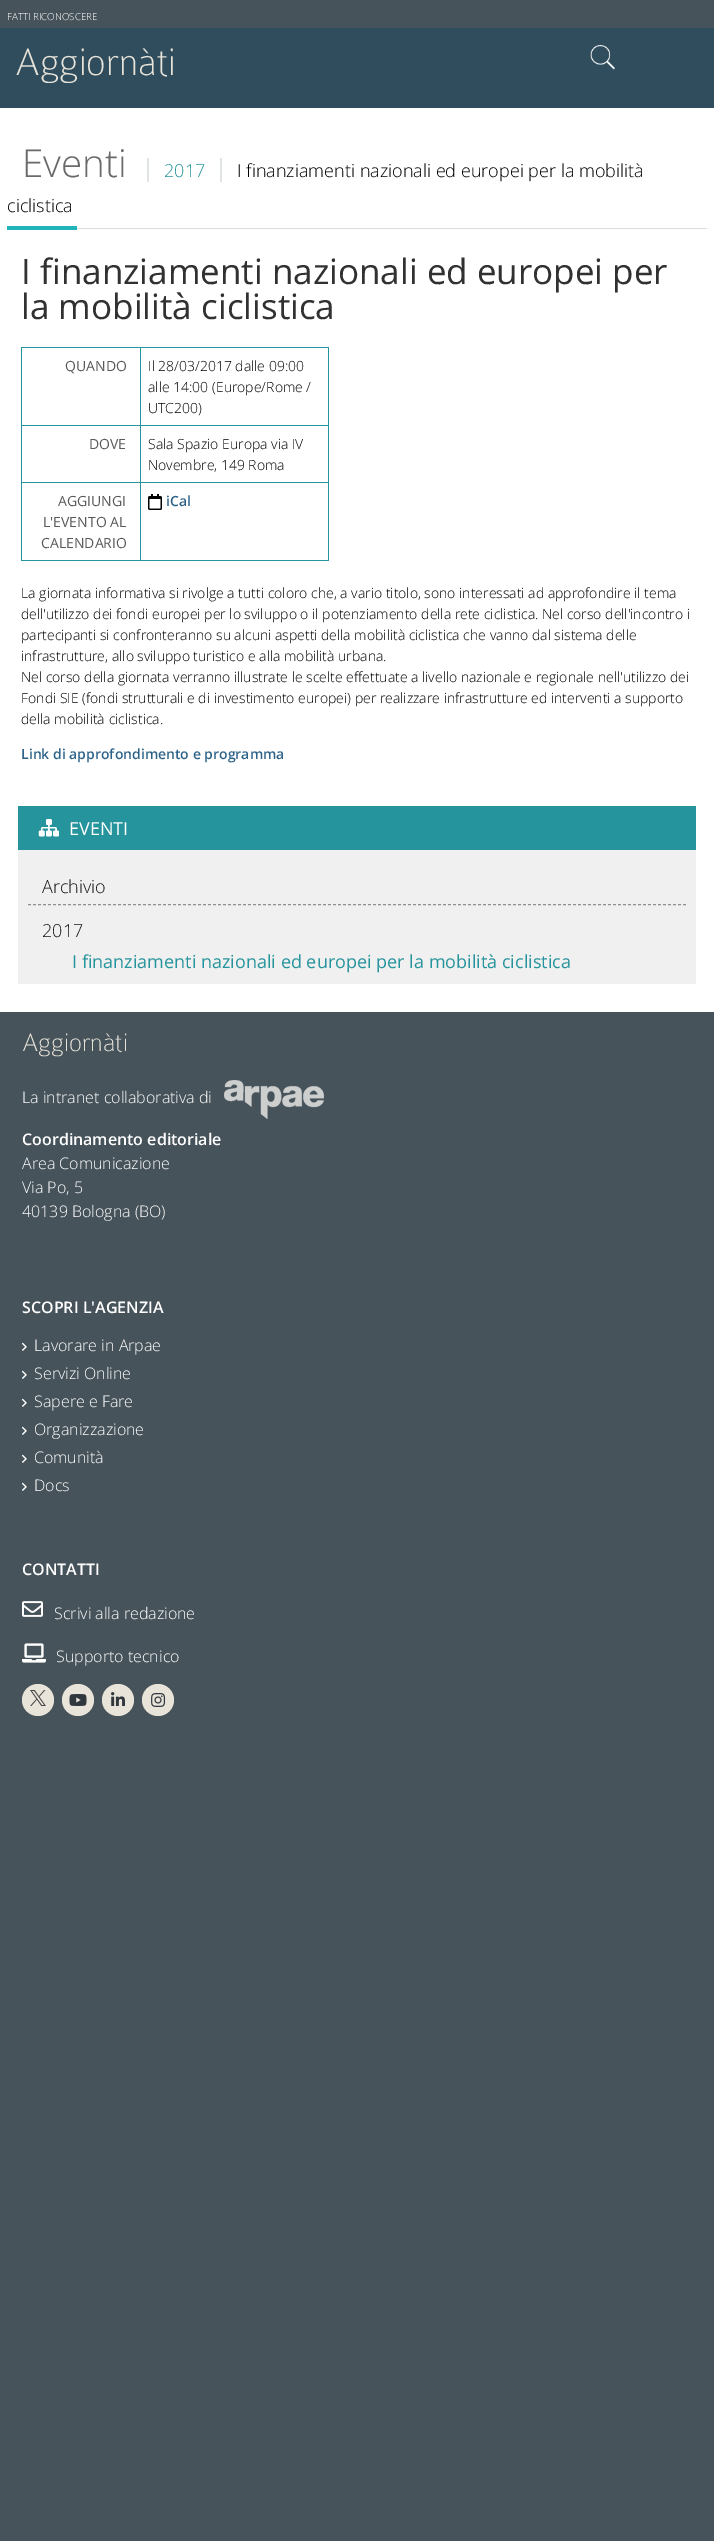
%!PS
<< /PageSize [714 2541] >> setpagedevice
/m/moveto load def
/l/rlineto load def
/f/fill load def
/s/stroke load def
/C { dup -16 bitshift 255 div exch dup -8 bitshift 255 and 255 div exch 255 and 255 div setrgbcolor } def
/F { [ exch dup neg 0 0 3 -1 roll 0 0 ] selectfont } def
/T { moveto show } def
/R { rectfill } def
/O { newpath 0 360 arc closepath } def
/I { 5 dict begin { /h /w /y /x /name } { exch def } forall
  gsave x y translate w h scale
  w h 8 [w 0 0 h 0 0] name (r) file false 3 colorimage grestore end } def
0 2541 translate 1 -1 scale
4 setmiterlimit
16#46535A C
0 0 714 2541 R
16#FFFFFF C
0 108 714 904 R
/OpenSans-Light 9.75 F
(FATTI RICONOSCERE) 7 20 T
16#304D5D C
0 28 714 80 R
/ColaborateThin-Thin 41 F
16#E8E4DA C
(Aggiornàti) 15 75 T
(1.rgb) 590 45 25 25 I
16#DCDCDC C
77 228 630 1 R
/OpenSans-Light 38.5 F
16#6A6A6A C
(Eventi) 22 177 T
/OpenSans-Light 18 F
16#26949C C
(2017) 164 177 T
16#E0E4E4 C
147 158 2 24 R
16#000000 C
(I finanziamenti nazionali ed europei per la mobilità) 237 177 T
16#E0E4E4 C
220 158 2 24 R
16#000000 C
(ciclistica) 7 212 T
16#21B5BA C
7 226 70 4 R
/OpenSans-Regular 35 F
16#313131 C
(I finanziamenti nazionali ed europei per) 21 284 T
(la mobilità ciclistica) 21 319 T
16#26949C C
21 560 308 1 R
21 347 308 1 R
140 347 1 78 R
21 347 1 78 R
/OpenSans-Regular 14 F
16#595959 C
(QUANDO) 65 371 T
16#26949C C
328 347 1 78 R
/OpenSans-Light 14 F
16#000000 C
(Il 28/03/2017 dalle 09:00) 148 371 T
(alle 14:00 \(Europe/Rome /) 148 392 T
(UTC200\)) 148 413 T
16#26949C C
21 425 308 1 R
140 425 1 57 R
21 425 1 57 R
/OpenSans-Regular 14 F
16#595959 C
(DOVE) 89 449 T
16#26949C C
328 425 1 57 R
/OpenSans-Light 14 F
16#000000 C
(Sala Spazio Europa via IV) 148 449 T
(Novembre, 149 Roma) 148 470 T
16#26949C C
21 482 308 1 R
140 482 1 78 R
21 482 1 78 R
/OpenSans-Regular 14 F
16#595959 C
(AGGIUNGI) 58 506 T
(L'EVENTO AL) 43 527 T
(CALENDARIO) 41 548 T
16#26949C C
328 482 1 78 R
(2.rgb) 148 494 14 16 I
/OpenSans-SemiBold 14 F
16#2E6389 C
(iCal) 166 506 T
/OpenSans-Light 14 F
16#000000 C
(La giornata informativa si rivolge a tutti coloro che, a vario titolo, sono interessati ad approfondire il tema) 21 598 T
(dell'utilizzo dei fondi europei per lo sviluppo o il potenziamento della rete ciclistica. Nel corso dell'incontro i) 21 619 T
(partecipanti si confronteranno su alcuni aspetti della mobilità ciclistica che vanno dal sistema delle) 21 640 T
(infrastrutture, allo sviluppo turistico e alla mobilità urbana.) 21 661 T
(Nel corso della giornata verranno illustrate le scelte effettuate a livello nazionale e regionale nell'utilizzo dei) 21 682 T
(Fondi SIE \(fondi strutturali e di investimento europei\) per realizzare infrastrutture ed interventi a supporto) 21 703 T
(della mobilità ciclistica.) 21 724 T
/OpenSans-SemiBold 14 F
16#2E6389 C
(Link di approfondimento e programma) 21 759 T
16#26949C C
18 806 678 44 R
(3.rgb) 38 819 21 18 I
/OpenSans-Regular 18 F
16#FFFFFF C
(EVENTI) 69 835 T
16#F0F0F0 C
18 850 678 134 R
16#909090 C
[3 2] 0 setdash
28 904.5 m 658 0 l s
/OpenSans-Light 18 F
16#171717 C
(Archivio) 42 893 T
(2017) 42 937 T
/OpenSans-Regular 18 F
16#26949C C
(I finanziamenti nazionali ed europei per la mobilità ciclistica) 72 968 T
/ColaborateThin-Thin 27 F
16#E8E4DA C
(Aggiornàti) 22 1051 T
/OpenSans-Light 16 F
16#FFFFFF C
(La intranet collaborativa di) 22 1103 T
(4.rgb) 224 1080 100 39 I
/OpenSans-SemiBold 16 F
(Coordinamento editoriale) 22 1145 T
/OpenSans-Light 16 F
(Area Comunicazione) 22 1169 T
(Via Po, 5) 22 1193 T
(40139 Bologna \(BO\)) 22 1217 T
/OpenSans-SemiBold 16 F
(SCOPRI L'AGENZIA) 22 1313 T
(5.rgb) 22 1342 5 9 I
/OpenSans-Light 16 F
(Lavorare in Arpae) 34 1351 T
(5.rgb) 22 1370 5 9 I
(Servizi Online) 34 1379 T
(5.rgb) 22 1398 5 9 I
(Sapere e Fare) 34 1407 T
(5.rgb) 22 1426 5 9 I
(Organizzazione) 34 1435 T
(5.rgb) 22 1454 5 9 I
(Comunità) 34 1463 T
(5.rgb) 22 1482 5 9 I
(Docs) 34 1491 T
/OpenSans-SemiBold 16 F
(CONTATTI) 22 1575 T
(6.rgb) 22 1601 21 16 I
/OpenSans-Light 16 F
(Scrivi alla redazione) 54 1619 T
(7.rgb) 22 1643 24 20 I
(Supporto tecnico) 56 1662 T
16#E8E4DA C
38 1700 16 O f
(8.rgb) 30 1690 16 16 I
78 1700 16 O f
(9.rgb) 69 1694 18 12 I
118 1700 16 O f
(10.rgb) 111 1692 14 14 I
158 1700 16 O f
(11.rgb) 151 1693 15 14 I
showpage
